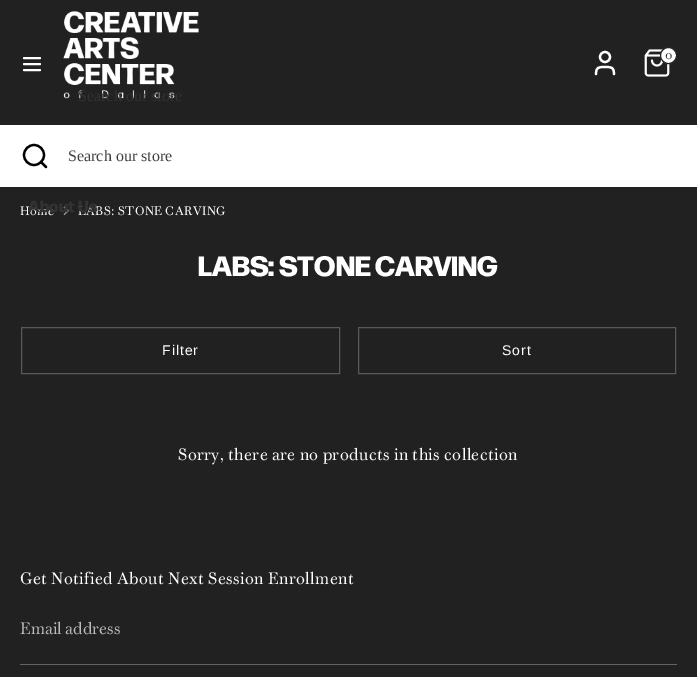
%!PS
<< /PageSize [697 677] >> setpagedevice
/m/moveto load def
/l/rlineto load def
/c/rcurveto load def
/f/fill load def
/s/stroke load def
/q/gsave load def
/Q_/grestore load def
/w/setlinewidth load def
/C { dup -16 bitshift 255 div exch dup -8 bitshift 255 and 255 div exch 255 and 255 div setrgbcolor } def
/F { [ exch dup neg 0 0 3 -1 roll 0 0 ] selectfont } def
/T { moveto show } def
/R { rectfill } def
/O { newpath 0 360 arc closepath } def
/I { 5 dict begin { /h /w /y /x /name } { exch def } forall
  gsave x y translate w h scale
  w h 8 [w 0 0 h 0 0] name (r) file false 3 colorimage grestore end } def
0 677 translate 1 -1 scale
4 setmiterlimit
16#212121 C
0 0 697 677 R
16#FFFFFF C
2 w
1 setlinecap
1 setlinejoin
24 64 m 16 0 l 24 58 m 16 0 l 24 70 m 16 0 l s
(1.rgb) 63 11 136 88 I
2.2 w
614 74 m 0 -7 -2.5 -7 -9 -7 c -6.5 0 -9 0 -9 7 c s
0 setlinecap
0 setlinejoin
605 57 5 O s
(2.rgb) 644 49 26 28 I
668.5 55.5 8 O q f Q_
16#212121 C
1 w
s
/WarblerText-Regular 11 F
(0) 665 59 T
/LiberationSerif-Regular 16 F
16#333333 C
(Search our store) 78 101 T
/WarblerText-Regular 12 F
16#FFFFFF C
20 215 m .4 0 (Home) ashow
(3.rgb) 63 206 6 10 I
78 215 m .4 0 (LABS: STONE CARVING) ashow
/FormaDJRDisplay-Bold 16 F
16#333333 C
28 212 m .4 0 (About Us) ashow
16#FFFFFF C
0 125 697 62 R
16#000000 C
2.2 w
34 155 10 O s
1 setlinecap
1 setlinejoin
46 167 m -5 -5 l s
/LiberationSerif-Regular 16 F
16#404040 C
(Search our store) 68 161 T
/FormaDJRDisplay-Bold 28 F
16#FFFFFF C
(LABS: STONE CARVING) 198 276 T
16#595959 C
1 w
0 setlinecap
0 setlinejoin
21.5 327.5 318 46 rectstroke
/LiberationSans-Regular 14 F
16#FFFFFF C
162 355 m 1 0 (Filter) ashow
16#595959 C
358.5 327.5 317 46 rectstroke
16#FFFFFF C
502 355 m 1 0 (Sort) ashow
/WarblerText-Regular 16 F
178 460 m .4 0 (Sorry, there are no products in this collection) ashow
20 584 m .4 0 (Get Notified About Next Session Enrollment) ashow
16#646464 C
20 664 657 1 R
16#BCBCBC C
(Email address) 20 634 T
showpage
